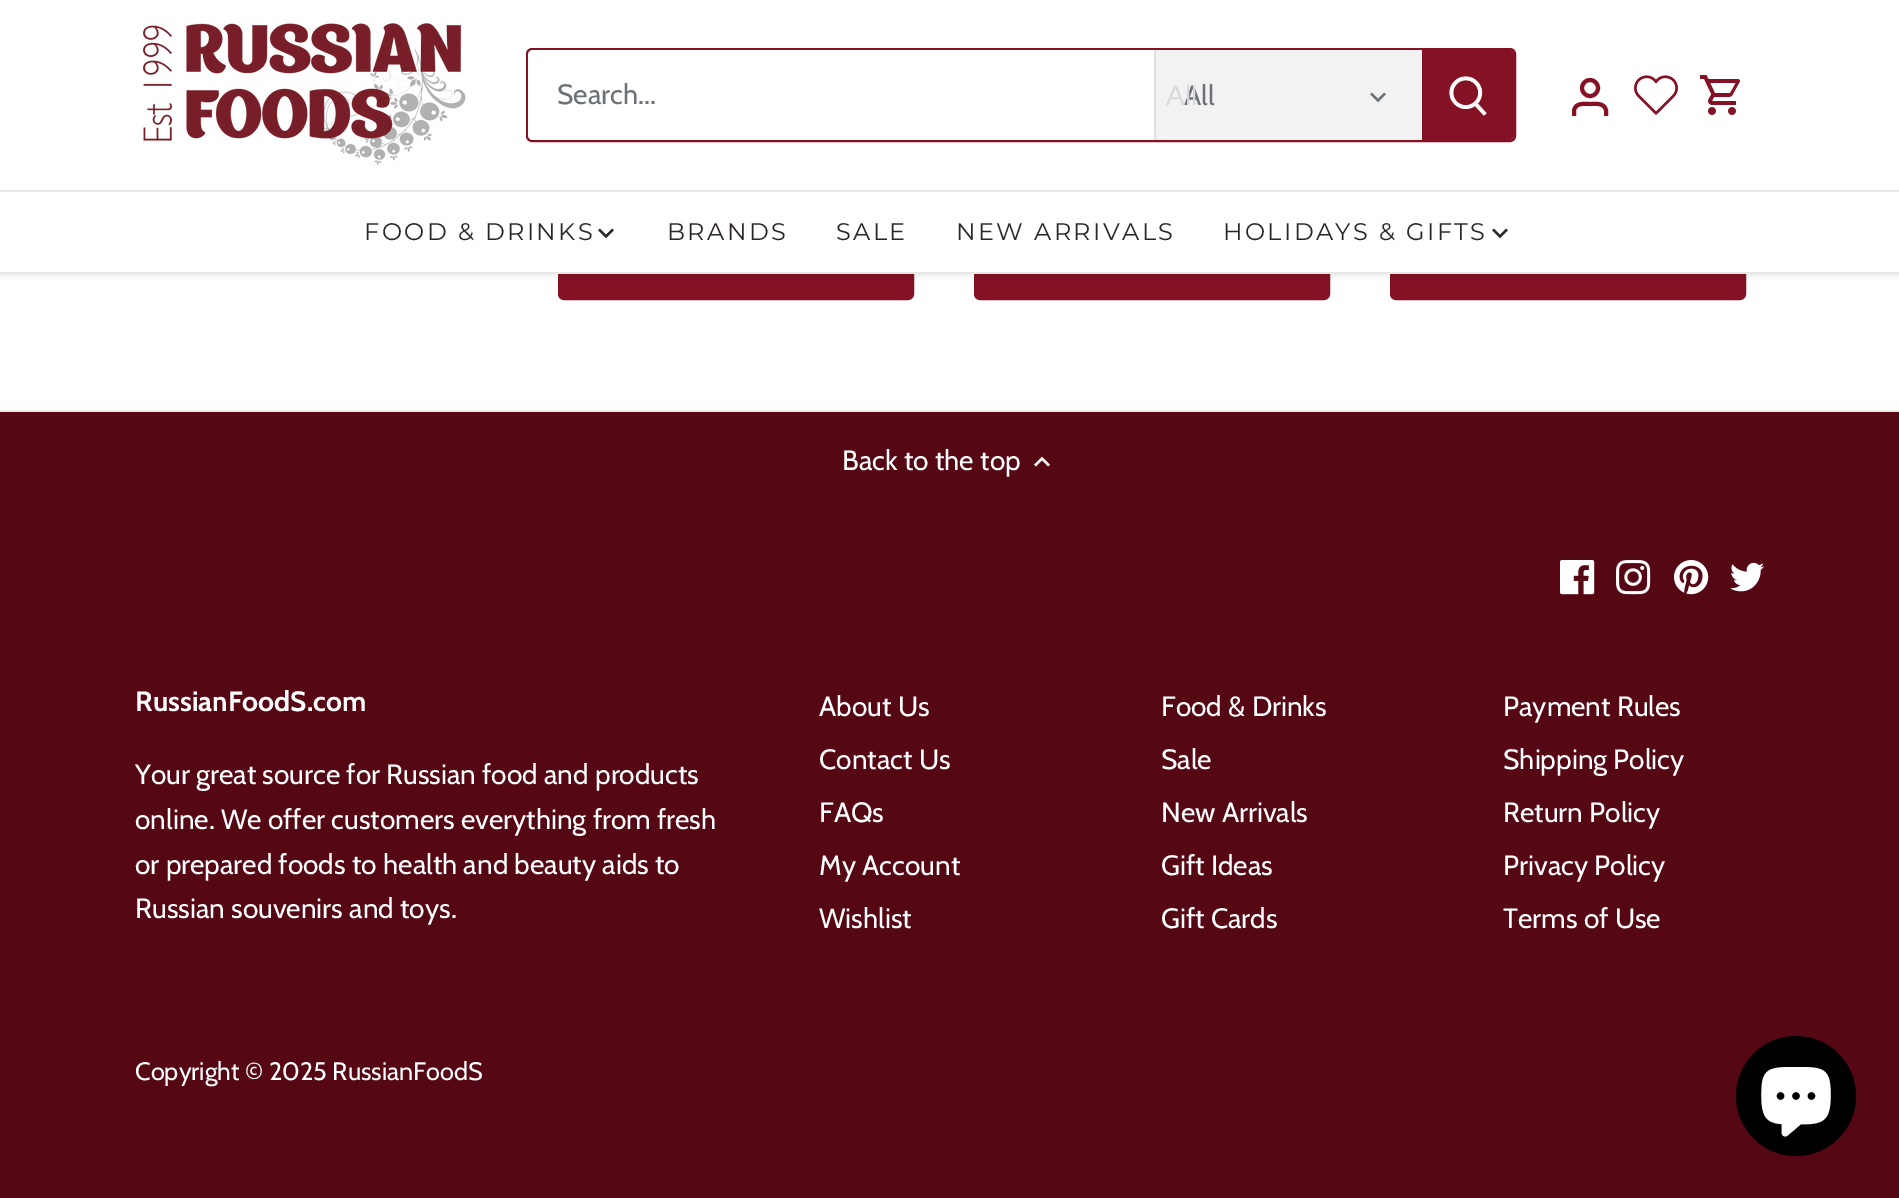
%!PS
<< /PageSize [1899 1198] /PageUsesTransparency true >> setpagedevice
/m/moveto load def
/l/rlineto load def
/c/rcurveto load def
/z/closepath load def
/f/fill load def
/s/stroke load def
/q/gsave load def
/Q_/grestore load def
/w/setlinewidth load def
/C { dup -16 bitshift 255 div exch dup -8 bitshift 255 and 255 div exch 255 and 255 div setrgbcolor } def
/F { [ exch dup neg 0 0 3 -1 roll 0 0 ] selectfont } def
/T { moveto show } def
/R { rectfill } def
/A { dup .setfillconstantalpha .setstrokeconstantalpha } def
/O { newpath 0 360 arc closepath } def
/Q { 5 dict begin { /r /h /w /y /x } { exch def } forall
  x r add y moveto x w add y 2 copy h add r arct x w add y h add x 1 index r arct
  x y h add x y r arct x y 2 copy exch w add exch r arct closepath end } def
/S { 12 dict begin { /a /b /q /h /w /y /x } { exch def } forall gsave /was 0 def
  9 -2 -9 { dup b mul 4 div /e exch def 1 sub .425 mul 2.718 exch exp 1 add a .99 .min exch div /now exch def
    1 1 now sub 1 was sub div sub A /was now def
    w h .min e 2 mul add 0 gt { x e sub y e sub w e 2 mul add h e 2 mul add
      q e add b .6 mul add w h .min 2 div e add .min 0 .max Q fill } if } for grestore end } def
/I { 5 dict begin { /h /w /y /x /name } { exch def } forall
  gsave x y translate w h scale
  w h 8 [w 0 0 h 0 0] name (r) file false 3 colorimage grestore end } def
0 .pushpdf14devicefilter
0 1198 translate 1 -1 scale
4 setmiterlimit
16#560714 C
0 0 1899 1198 R
16#FFFFFF C
0 274 1899 136 R
16#841224 C
560 228 352 70 4 Q q f Q_
4 w
s
976 228 352 70 4 Q q f Q_
s
1392 228 352 70 4 Q q f Q_
s
16#000000 C
-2 -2 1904 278 0 3 .08 S
16#FFFFFF C
0 0 1899 272 R
16#E7E7E7 C
0 272 1899 2 R
0 190 1899 2 R
(1.rgb) 143 23 323 142 I
16#841224 C
2 w
527 49 988 92 5 Q s
16#FFFFFF C
534 50 m 620 0 l 0 90 l -620 0 l -3.5 0 -6 -2.5 -6 -6 c 0 -78 l 0 -3.5 2.5 -6 6 -6 c z f
/Cabin-Regular 28 F
16#6B7177 C
(Search...) 557 104 T
16#F2F2F2 C
1156 50 266 90 R
16#E0E1E2 C
1154 50 2 90 R
16#6B7177 C
(All) 1184 105 T
/LiberationSans-Regular 28 F
16#D8D9DA C
(All) 1166 105 T
(2.rgb) 1370 92 16 11 I
16#841224 C
1422 50 m 88 0 l 2 0 4 2 4 4 c 0 82 l 0 2 -2 4 -4 4 c -88 0 l z f
(3.rgb) 1449 76 38 40 I
4 w
1590 88 8 O s
1606 116 m 0 -5.5 l -1.5 -8 -10 -6.5 -16 -6.5 c -6 0 -14.5 -1.5 -16 6.5 c 0 5.5 l s
(4.rgb) 1634 75 44 40 I
(5.rgb) 1700 75 40 40 I
/Montserrat-Regular 24 F
16#2C2528 C
364 240 m 2.4 0 (FOOD & DRINKS) ashow
(6.rgb) 598 228 16 11 I
667 240 m 2.4 0 (BRANDS) ashow
836 240 m 2.4 0 (SALE) ashow
956 240 m 2.4 0 (NEW ARRIVALS) ashow
1223 240 m 2.4 0 (HOLIDAYS & GIFTS) ashow
(6.rgb) 1492 228 16 11 I
16#EDE8DD C
0 410 1899 2 R
/Cabin-Regular 28 F
16#FFFFFF C
(Back to the top) 842 470 T
(7.rgb) 1034 456 16 11 I
(8.rgb) 1560 560 35 35 I
(9.rgb) 1616 560 35 35 I
(10.rgb) 1674 560 35 35 I
(11.rgb) 1730 562 34 30 I
/Cabin-Bold 28 F
(RussianFoodS.com) 135 711 T
/Cabin-Regular 28 F
(Your great source for Russian food and products) 135 784 T
(online. We offer customers everything from fresh) 135 829 T
(or prepared foods to health and beauty aids to) 135 874 T
(Russian souvenirs and toys.) 135 918 T
(About Us) 819 716 T
(Contact Us) 819 769 T
(FAQs) 819 822 T
(My Account) 819 875 T
(Wishlist) 819 928 T
(Food & Drinks) 1161 716 T
(Sale) 1161 769 T
(New Arrivals) 1161 822 T
(Gift Ideas) 1161 875 T
(Gift Cards) 1161 928 T
(Payment Rules) 1503 716 T
(Shipping Policy) 1503 769 T
(Return Policy) 1503 822 T
(Privacy Policy) 1503 875 T
(Terms of Use) 1503 928 T
/Cabin-Regular 25.25 F
(Copyright © 2025 RussianFoodS) 135 1080 T
16#000000 C
1796 1096 60 O f
(12.rgb) 1761 1067 70 70 I
.poppdf14devicefilter showpage
